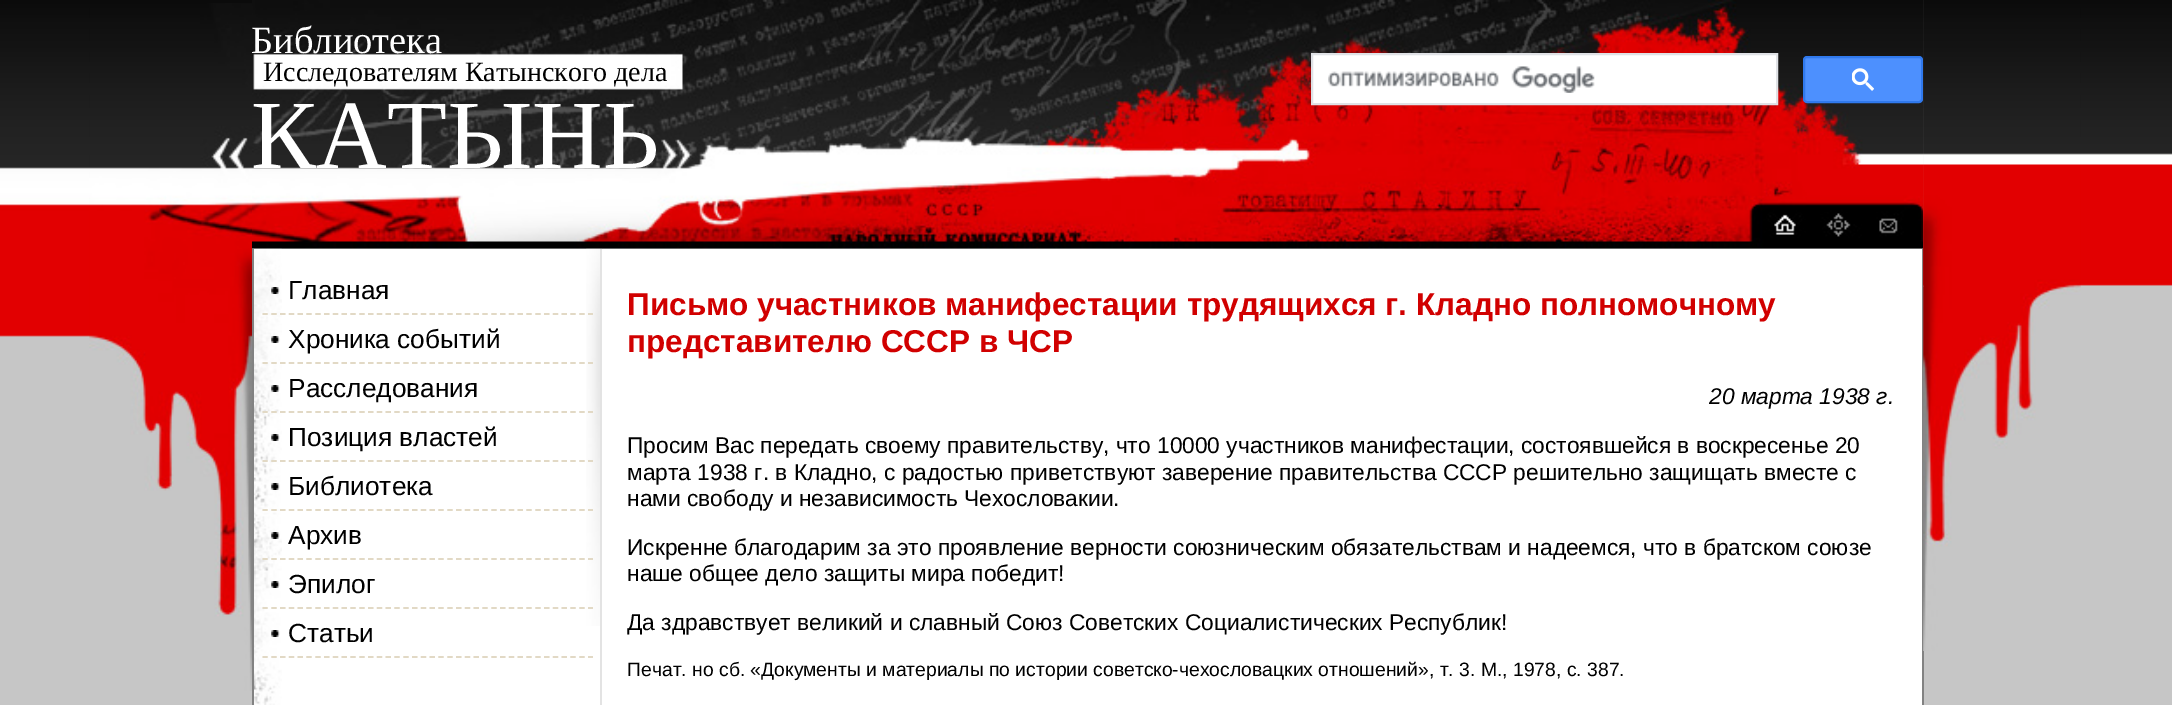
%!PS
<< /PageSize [2172 705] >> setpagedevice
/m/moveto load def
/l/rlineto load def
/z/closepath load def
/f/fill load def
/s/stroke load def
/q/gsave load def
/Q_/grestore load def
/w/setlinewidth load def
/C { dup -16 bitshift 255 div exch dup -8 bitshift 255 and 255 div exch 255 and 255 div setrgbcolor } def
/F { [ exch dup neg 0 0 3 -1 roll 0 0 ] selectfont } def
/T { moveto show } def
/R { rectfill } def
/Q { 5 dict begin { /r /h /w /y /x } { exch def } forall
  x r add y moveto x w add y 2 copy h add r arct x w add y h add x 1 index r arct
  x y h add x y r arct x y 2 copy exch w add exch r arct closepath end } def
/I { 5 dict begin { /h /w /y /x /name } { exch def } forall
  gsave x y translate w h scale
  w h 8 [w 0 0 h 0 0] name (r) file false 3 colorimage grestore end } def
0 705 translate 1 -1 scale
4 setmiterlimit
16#C6C6C6 C
0 0 2172 705 R
(1.rgb) 0 0 252 337 I
(2.rgb) 89 3 163 688 I
16#FFFFFF C
281 249 1641 456 R
(6.rgb) 252 248 350 457 I
(7.rgb) 586 248 15 378 I
(3.rgb) 252 0 1672 249 I
/LiberationSerif-Regular 38.5 F
(Библиотека) 251 53 T
/LiberationSerif-Regular 28 F
16#000000 C
(Исследователям Катынского дела) 263 81 T
16#FFFFFF C
1312 54 m 465 0 l 0 50 l -465 0 l z q f Q_
16#DFE1E5 C
2 w
s
(4.rgb) 1328 66 267 27 I
16#4D90FE C
1804 57 118 45 3 Q q f Q_
16#3079ED C
s
(5.rgb) 1852 68 22 23 I
/LiberationSerif-Regular 98 F
16#FFFFFF C
(КАТЫНЬ) 251 168 T
16#828282 C
1922 249 2 456 R
252 249 2 456 R
16#E3E3E3 C
600 249 1 456 R
(8.rgb) 271 287 9 7 I
/LiberationSans-Regular 26.25 F
16#000000 C
(Главная) 288 299 T
16#E2D9C5 C
1.8 w
[5.25 3.55] 0 setdash
262.5 314 m 330.5 0 l s
(9.rgb) 271 336 9 7 I
16#000000 C
(Хроника событий) 288 348 T
16#E2D9C5 C
262.5 363 m 330.5 0 l s
(10.rgb) 271 385 9 7 I
16#000000 C
(Расследования) 288 397 T
16#E2D9C5 C
262.5 412 m 330.5 0 l s
(11.rgb) 271 434 9 7 I
16#000000 C
(Позиция властей) 288 446 T
16#E2D9C5 C
262.5 461 m 330.5 0 l s
(12.rgb) 271 483 9 7 I
16#000000 C
(Библиотека) 288 495 T
16#E2D9C5 C
262.5 510 m 330.5 0 l s
(13.rgb) 271 532 9 7 I
16#000000 C
(Архив) 288 544 T
16#E2D9C5 C
262.5 559 m 330.5 0 l s
(11.rgb) 271 581 9 7 I
16#000000 C
(Эпилог) 288 593 T
16#E2D9C5 C
262.5 608 m 330.5 0 l s
(14.rgb) 271 630 9 7 I
16#000000 C
(Статьи) 288 642 T
16#E2D9C5 C
262.5 657 m 330.5 0 l s
/LiberationSans-Bold 31.5 F
16#D10000 C
(Письмо участников манифестации трудящихся г. Кладно полномочному) 627 315 T
(представителю СССР в ЧСР) 627 352 T
/LiberationSans-Italic 22.75 F
16#000000 C
(20 марта 1938 г.) 1709 404 T
/LiberationSans-Regular 22.75 F
(Просим Вас передать своему правительству, что 10000 участников манифестации, состоявшейся в воскресенье 20) 627 453 T
(марта 1938 г. в Кладно, с радостью приветствуют заверение правительства СССР решительно защищать вместе с) 627 480 T
(нами свободу и независимость Чехословакии.) 627 506 T
(Искренне благодарим за это проявление верности союзническим обязательствам и надеемся, что в братском союзе) 627 555 T
(наше общее дело защиты мира победит!) 627 581 T
(Да здравствует великий и славный Союз Советских Социалистических Республик!) 627 630 T
/LiberationSans-Regular 19.35 F
(Печат. но сб. «Документы и материалы по истории советско-чехословацких отношений», т. 3. М., 1978, с. 387.) 627 676 T
(15.rgb) 1923 0 249 287 I
(16.rgb) 1923 0 158 651 I
showpage
